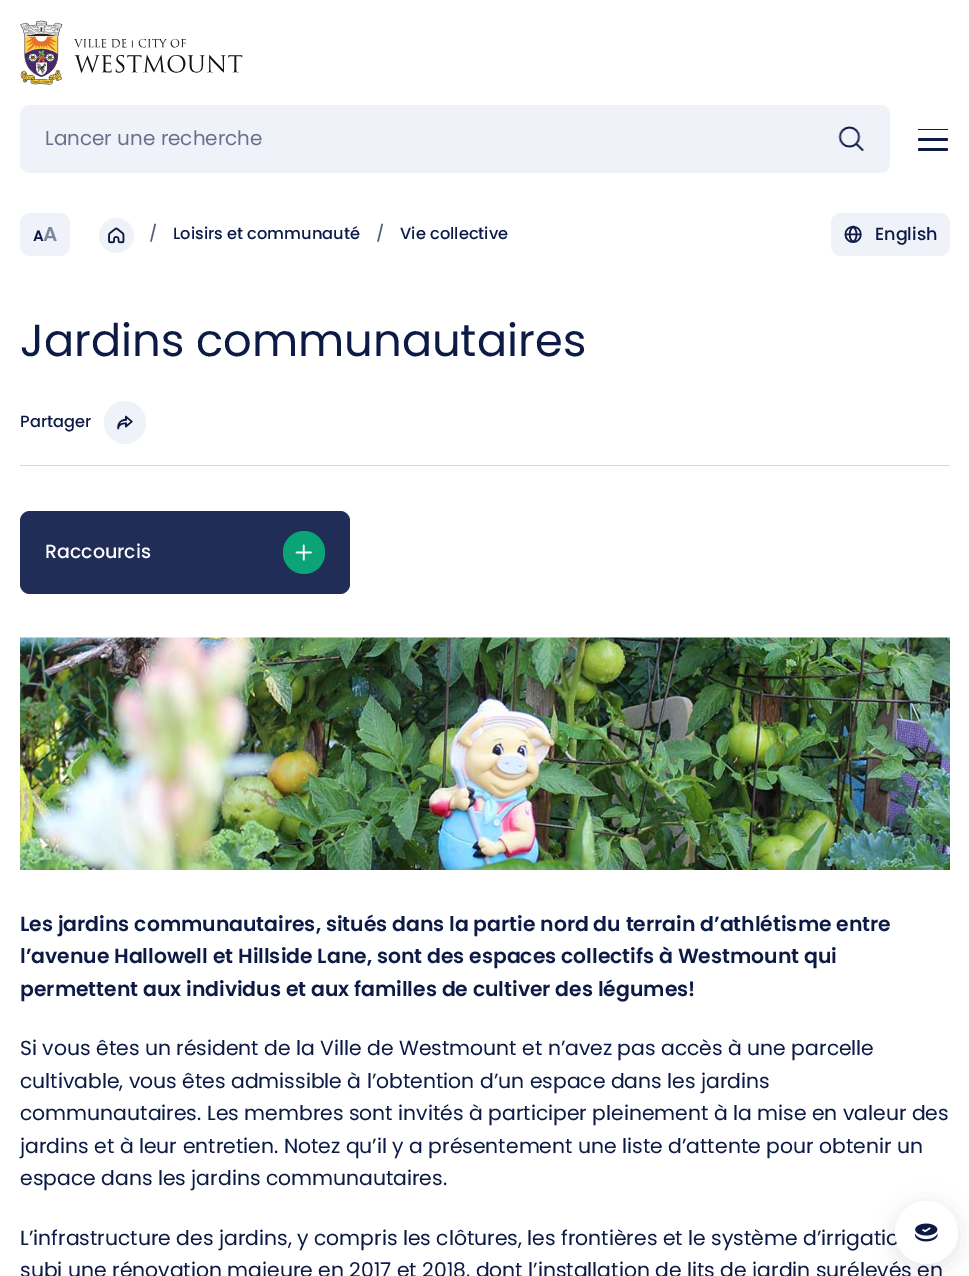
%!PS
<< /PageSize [969 1276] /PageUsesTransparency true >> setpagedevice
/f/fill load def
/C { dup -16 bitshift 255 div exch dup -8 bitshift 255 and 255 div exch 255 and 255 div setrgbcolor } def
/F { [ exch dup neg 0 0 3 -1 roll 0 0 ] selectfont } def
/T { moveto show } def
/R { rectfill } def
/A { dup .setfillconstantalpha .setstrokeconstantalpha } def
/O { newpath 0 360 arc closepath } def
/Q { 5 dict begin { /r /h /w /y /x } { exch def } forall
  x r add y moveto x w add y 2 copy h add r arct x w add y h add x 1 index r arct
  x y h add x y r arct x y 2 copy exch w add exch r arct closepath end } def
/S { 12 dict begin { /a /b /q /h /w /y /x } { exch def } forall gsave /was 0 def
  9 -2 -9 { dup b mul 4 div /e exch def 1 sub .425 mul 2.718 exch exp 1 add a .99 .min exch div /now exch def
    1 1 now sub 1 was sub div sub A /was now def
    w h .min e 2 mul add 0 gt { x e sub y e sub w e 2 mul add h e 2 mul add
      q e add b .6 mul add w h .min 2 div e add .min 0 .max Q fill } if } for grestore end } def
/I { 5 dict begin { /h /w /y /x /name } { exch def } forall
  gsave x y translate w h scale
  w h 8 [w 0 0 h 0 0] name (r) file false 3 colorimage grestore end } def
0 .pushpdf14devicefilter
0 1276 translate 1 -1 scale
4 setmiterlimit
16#FFFFFF C
0 0 969 1276 R
(1.rgb) 20 20 223 65 I
16#EFF3F9 C
20 105 870 68 10 Q f
/Poppins-Regular 20 F
16#67718D C
(Lancer une recherche) 45 145 T
(2.rgb) 838 126 26 25 I
16#0C1A45 C
918 129 30 1 .5 Q f
918 138 30 3 1.5 Q f
918 148 30 3 1.5 Q f
16#EFF3F9 C
20 213 50 43 10 Q f
/Poppins-SemiBold 15 F
16#0C1A45 C
(A) 33 241 T
/Poppins-SemiBold 20 F
16#7E879F C
(A) 43 241 T
16#EFF3F9 C
116.5 235.5 17.5 O f
(3.rgb) 108 227 17 17 I
/Poppins-Medium 16.25 F
16#555F7D C
(/) 149 239 T
16#0C1A45 C
(Loisirs et communauté) 173 239 T
16#555F7D C
(/) 376 239 T
16#0C1A45 C
(Vie collective) 400 239 T
16#EFF3F9 C
831 213 119 43 10 Q f
(4.rgb) 844 225 18 18 I
/Poppins-Medium 17.5 F
16#0C1A45 C
(English) 875 240 T
/Poppins-Regular 44.8 F
(Jardins communautaires) 20 356 T
16#C5D9F8 C
20 465 930 1 R
/Poppins-Medium 16.25 F
16#0C1A45 C
(Partager) 20 427 T
16#EFF3F9 C
104 401 42 43 21 Q f
(5.rgb) 117 415 16 15 I
16#1F2D57 C
20 511 330 83 10 Q f
/Poppins-Medium 19 F
16#FFFFFF C
(Raccourcis) 45 558 T
16#0AA476 C
283 531 42 43 21 Q f
(6.rgb) 295 544 17 17 I
(7.rgb) 20 637 930 233 I
/Poppins-SemiBold 20.35 F
16#0C1A45 C
(Les jardins communautaires, situés dans la partie nord du terrain d’athlétisme entre) 20 931 T
(l’avenue Hallowell et Hillside Lane, sont des espaces collectifs à Westmount qui) 20 963 T
(permettent aux individus et aux familles de cultiver des légumes!) 20 996 T
/Poppins-Regular 20.35 F
(Si vous êtes un résident de la Ville de Westmount et n’avez pas accès à une parcelle) 20 1055 T
(cultivable, vous êtes admissible à l’obtention d’un espace dans les jardins) 20 1088 T
(communautaires. Les membres sont invités à participer pleinement à la mise en valeur des) 20 1120 T
(jardins et à leur entretien. Notez qu’il y a présentement une liste d’attente pour obtenir un) 20 1153 T
(espace dans les jardins communautaires.) 20 1185 T
(L’infrastructure des jardins, y compris les clôtures, les frontières et le système d’irrigatio) 20 1245 T
(subi une rénovation majeure en 2017 et 2018, dont l’installation de lits de jardin surélevés en) 20 1277 T
16#000000 C
895 1206 63 63 31.5 11 .1 S
16#FFFFFF C
926.5 1232.5 31.5 O f
(8.rgb) 914 1223 24 19 I
.poppdf14devicefilter showpage
